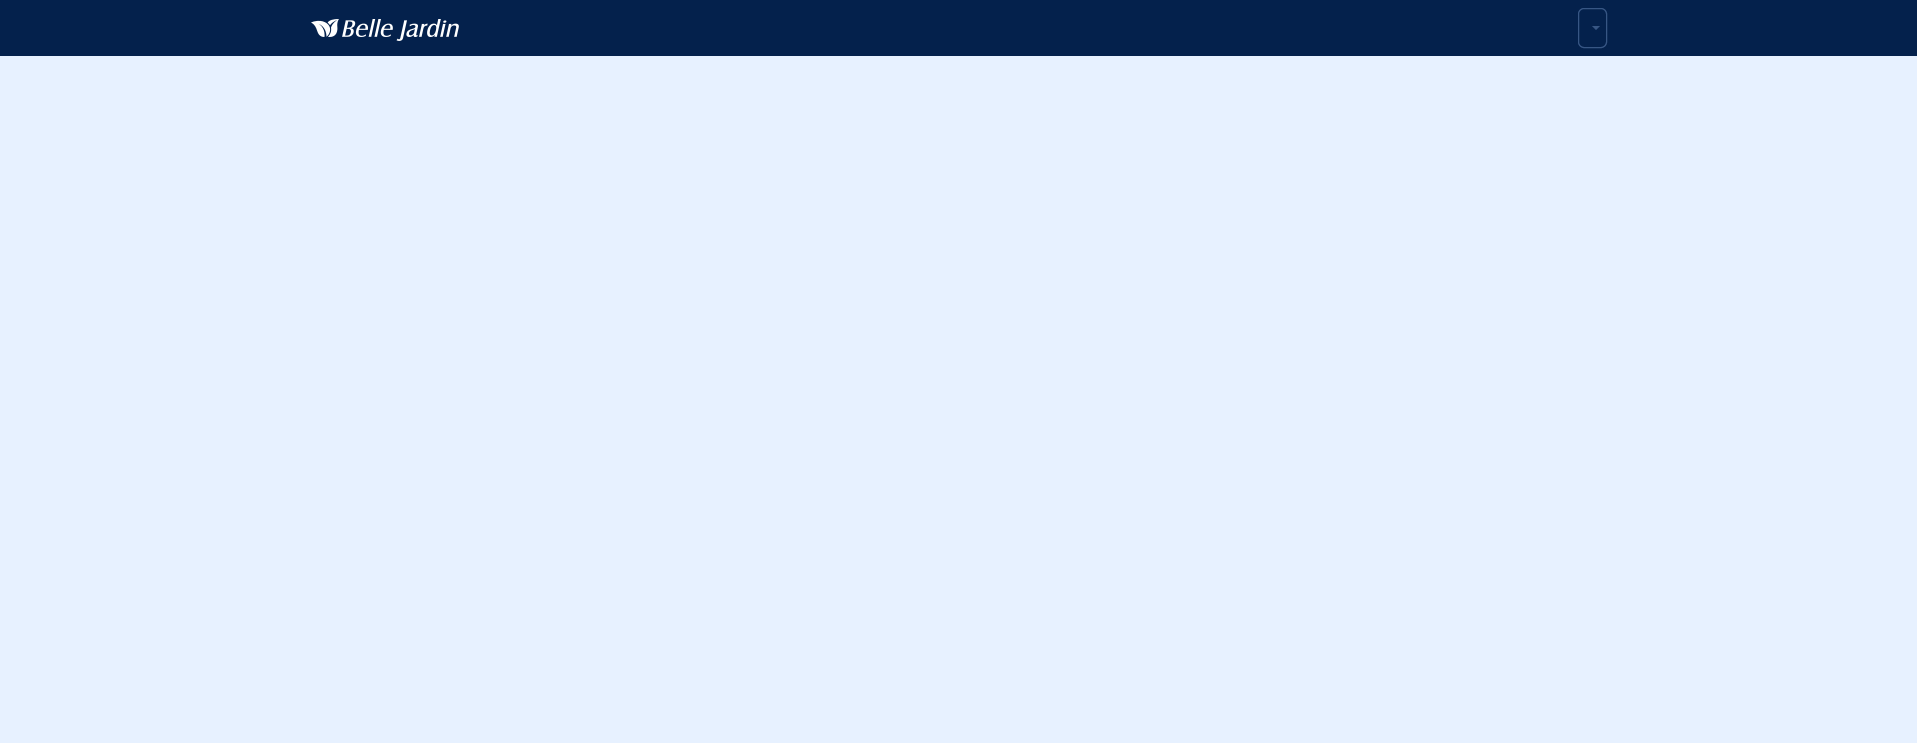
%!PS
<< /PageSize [1917 743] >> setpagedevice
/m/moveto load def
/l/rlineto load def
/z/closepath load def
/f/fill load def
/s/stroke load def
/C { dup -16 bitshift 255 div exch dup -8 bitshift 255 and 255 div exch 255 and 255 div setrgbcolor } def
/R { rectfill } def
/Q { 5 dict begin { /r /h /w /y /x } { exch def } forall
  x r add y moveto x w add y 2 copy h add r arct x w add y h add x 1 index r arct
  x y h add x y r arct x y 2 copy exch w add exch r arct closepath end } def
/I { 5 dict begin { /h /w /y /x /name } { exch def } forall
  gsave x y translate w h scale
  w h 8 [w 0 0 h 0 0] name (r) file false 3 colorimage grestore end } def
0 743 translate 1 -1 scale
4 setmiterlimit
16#04214C C
0 0 1917 743 R
(1.rgb) 311 19 148 22 I
16#375684 C
1578.5 8.5 28 39 5.5 Q s
1592 26 m 8 0 l -4 4 l z f
16#E7F1FF C
0 56 1917 687 R
showpage
